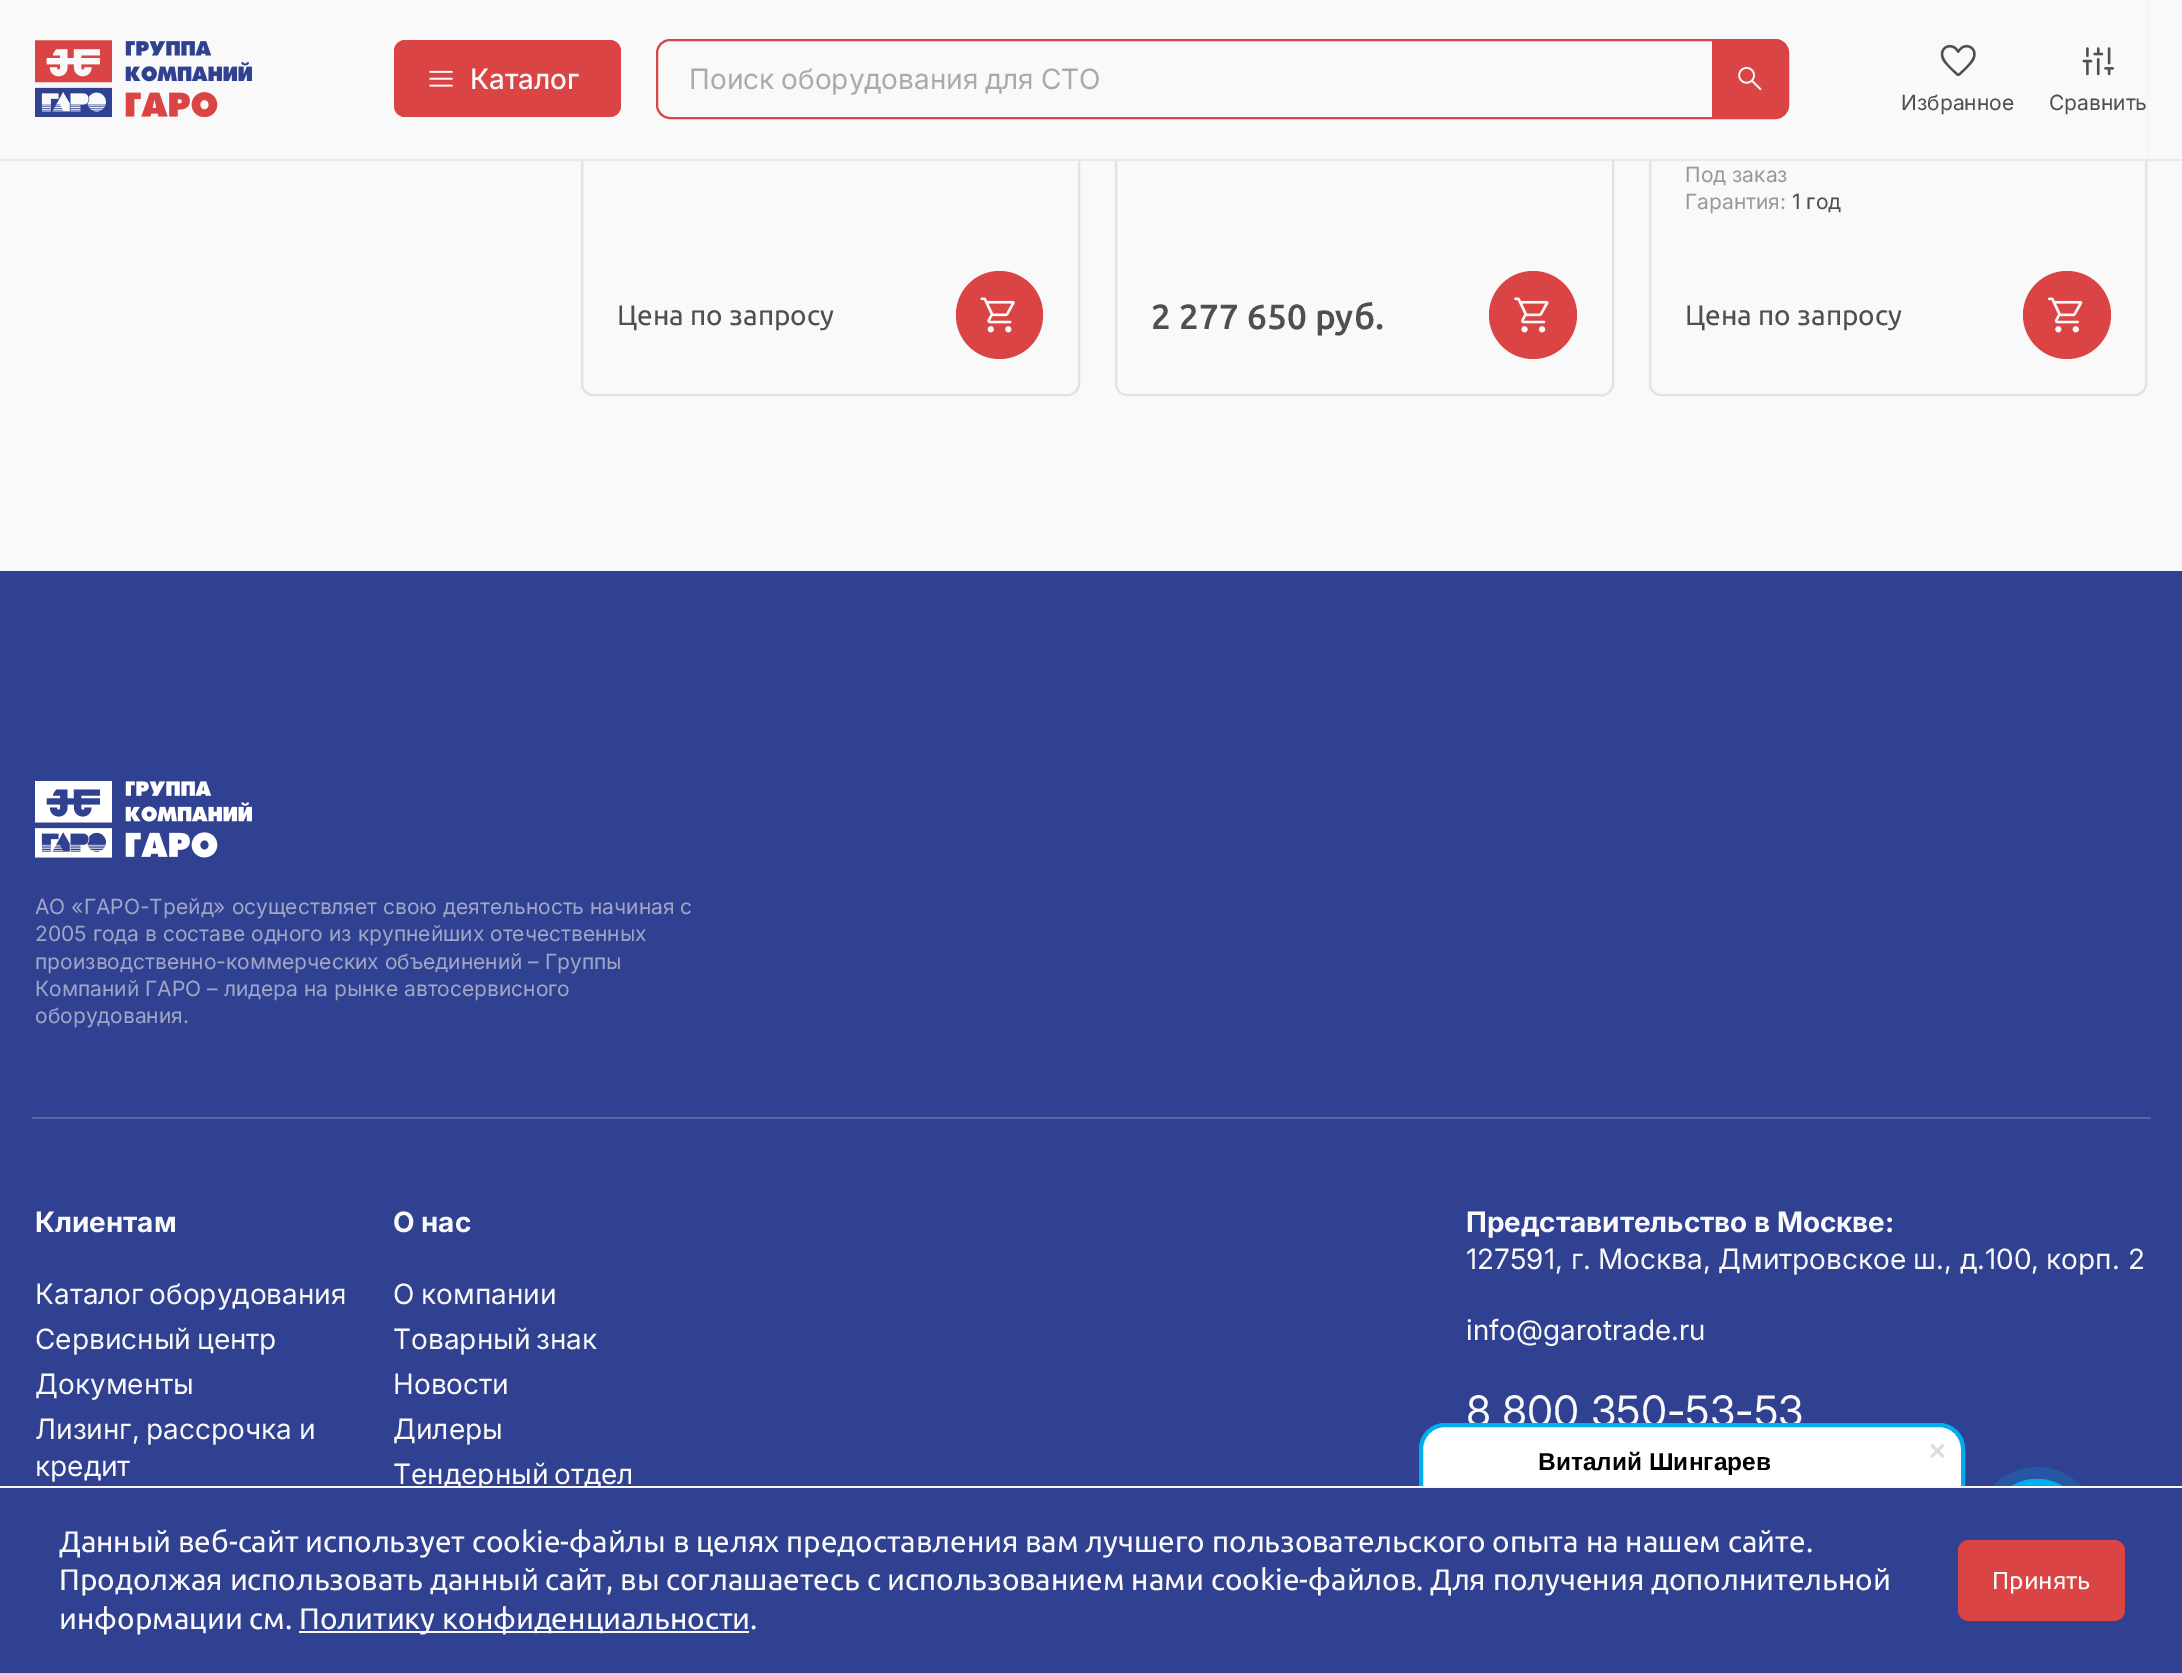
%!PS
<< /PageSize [2182 1673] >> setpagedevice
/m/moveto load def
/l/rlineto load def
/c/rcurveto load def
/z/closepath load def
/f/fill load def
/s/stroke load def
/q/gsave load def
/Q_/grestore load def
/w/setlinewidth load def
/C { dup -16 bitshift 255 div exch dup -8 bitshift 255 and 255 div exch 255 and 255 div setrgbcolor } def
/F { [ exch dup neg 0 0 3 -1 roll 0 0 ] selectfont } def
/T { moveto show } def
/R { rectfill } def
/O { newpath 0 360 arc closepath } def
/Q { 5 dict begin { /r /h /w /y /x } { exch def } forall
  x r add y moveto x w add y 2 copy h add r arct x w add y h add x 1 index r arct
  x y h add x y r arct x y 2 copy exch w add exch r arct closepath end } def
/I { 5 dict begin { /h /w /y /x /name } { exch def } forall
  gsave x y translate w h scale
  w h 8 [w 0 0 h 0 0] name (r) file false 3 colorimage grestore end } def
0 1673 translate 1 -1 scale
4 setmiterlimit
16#F9F9F9 C
0 0 2182 1673 R
16#E2E2E2 C
2 w
582 -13 497 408 11 Q s
1116 -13 497 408 11 Q s
1650 -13 496 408 11 Q s
16#F9F9F9 C
581 0 1566 159 R
16#E9E9E9 C
0 159 2182 2 R
(1.rgb) 35 40 217 77 I
16#DB4444 C
394 40 227 77 11 Q f
(2.rgb) 429 70 24 17 I
/Inter-Medium 28 F
16#F9F9F9 C
(Каталог) 470 89 T
16#DB4444 C
657 40 1131 78 13 Q s
/Inter-Regular 28 F
16#AAAAAA C
689 89 m -1 0 32 (Поиск оборудования для СТО) widthshow
16#DB4444 C
1712 39 m 63 0 l 7.5 0 14 6.5 14 14 c 0 52 l 0 7.5 -6.5 14 -14 14 c -63 0 l z f
(3.rgb) 1738 66 24 25 I
(4.rgb) 1940 44 36 33 I
/Inter-Regular 21 F
16#4F4F4F C
(Избранное) 1901 110 T
(5.rgb) 2082 47 32 29 I
(Сравнить) 2049 110 T
/Ubuntu-Regular 28 F
(Цена по запросу) 617 325 T
16#DB4444 C
956 271 87 88 43.5 Q f
(6.rgb) 980 297 35 36 I
/Ubuntu-Medium 35 F
16#4F4F4F C
(2 277 650 руб.) 1151 329 T
16#DB4444 C
1533 315 44 O f
(7.rgb) 1514 297 35 36 I
/Inter-Regular 21 F
16#999999 C
(Под заказ) 1685 182 T
(Гарантия:) 1685 209 T
16#4F4F4F C
(1 год) 1792 209 T
/Ubuntu-Regular 28 F
(Цена по запросу) 1685 325 T
16#DB4444 C
2067 315 44 O f
(8.rgb) 2048 297 35 36 I
16#304191 C
0 571 2182 915 R
(9.rgb) 35 781 217 77 I
/Inter-Regular 21 F
16#9FA6C6 C
(АО «ГАРО-Трейд» осуществляет свою деятельность начиная с) 35 914 T
(2005 года в составе одного из крупнейших отечественных) 35 941 T
(производственно-коммерческих объединений – Группы) 35 969 T
(Компаний ГАРО – лидера на рынке автосервисного) 35 996 T
(оборудования.) 35 1023 T
16#5866A6 C
32 1117 2119 2 R
/Inter-Bold 28 F
16#F9F9F9 C
(Клиентам) 35 1232 T
/Inter-Regular 28 F
35 1304 m -2 0 32 (Каталог оборудования) widthshow
35 1349 m -2 0 32 (Сервисный центр) widthshow
(Документы) 35 1394 T
(Лизинг) 35 1439 T
/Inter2-Regular 28 F
(,) 132 1439 T
/Inter-Regular 28 F
146 1439 m -1 0 32 (рассрочка и) widthshow
(кредит) 35 1476 T
/Inter-Bold 28 F
(О нас) 393 1232 T
/Inter-Regular 28 F
393 1304 m -1 0 32 (О компании) widthshow
393 1349 m -2 0 32 (Товарный знак) widthshow
(Новости) 393 1394 T
(Дилеры) 393 1439 T
393 1484 m -2 0 32 (Тендерный отдел) widthshow
/Inter-Bold 28 F
(Представительство в Москве) 1466 1232 T
/Inter2-Bold 28 F
(:) 1885 1232 T
/Inter2-Regular 28 F
(127591,) 1466 1269 T
/Inter-Regular 28 F
(г) 1571 1269 T
/Inter2-Regular 28 F
(.) 1583 1269 T
/Inter-Regular 28 F
(Москва) 1598 1269 T
/Inter2-Regular 28 F
(,) 1703 1269 T
/Inter-Regular 28 F
(Дмитровское) 1718 1269 T
(ш) 1913 1269 T
/Inter2-Regular 28 F
(.,) 1936 1269 T
/Inter-Regular 28 F
(д) 1960 1269 T
/Inter2-Regular 28 F
(.100,) 1977 1269 T
/Inter-Regular 28 F
(корп) 2046 1269 T
/Inter2-Regular 28 F
(. 2) 2112 1269 T
(info@garotrade.ru) 1466 1340 T
/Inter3-Regular 42 F
(8 800 350-53-53) 1466 1426 T
16#FFFFFF C
1421 1425 542 159 24 Q q f Q_
16#00AEEF C
4 w
s
/LiberationSans-Bold 24.5 F
16#000000 C
(Виталий Шингарев) 1538 1470 T
(10.rgb) 1930 1443 15 15 I
16#2657A4 C
2037 1528 61 O f
16#00AEEF C
1 w
2037 1528 48.5 O s
2037 1528 49 O f
16#304191 C
0 1488 2182 185 R
16#F9F9F9 C
1419 1486 664 2 R
/Ubuntu-Regular 29.75 F
(Данный веб-сайт использует cookie-файлы в целях предоставления вам лучшего пользовательского опыта на нашем сайте.) 59 1552 T
(Продолжая использовать данный сайт, вы соглашаетесь с использованием нами cookie-файлов. Для получения дополнительной) 59 1590 T
(информации см.) 59 1629 T
299 1631 450 2 R
(Политику конфиденциальности.) 299 1629 T
16#DB4444 C
1958 1540 167 81 11 Q f
/Ubuntu-Regular 24.5 F
16#F9F9F9 C
(Принять) 1992 1589 T
showpage
